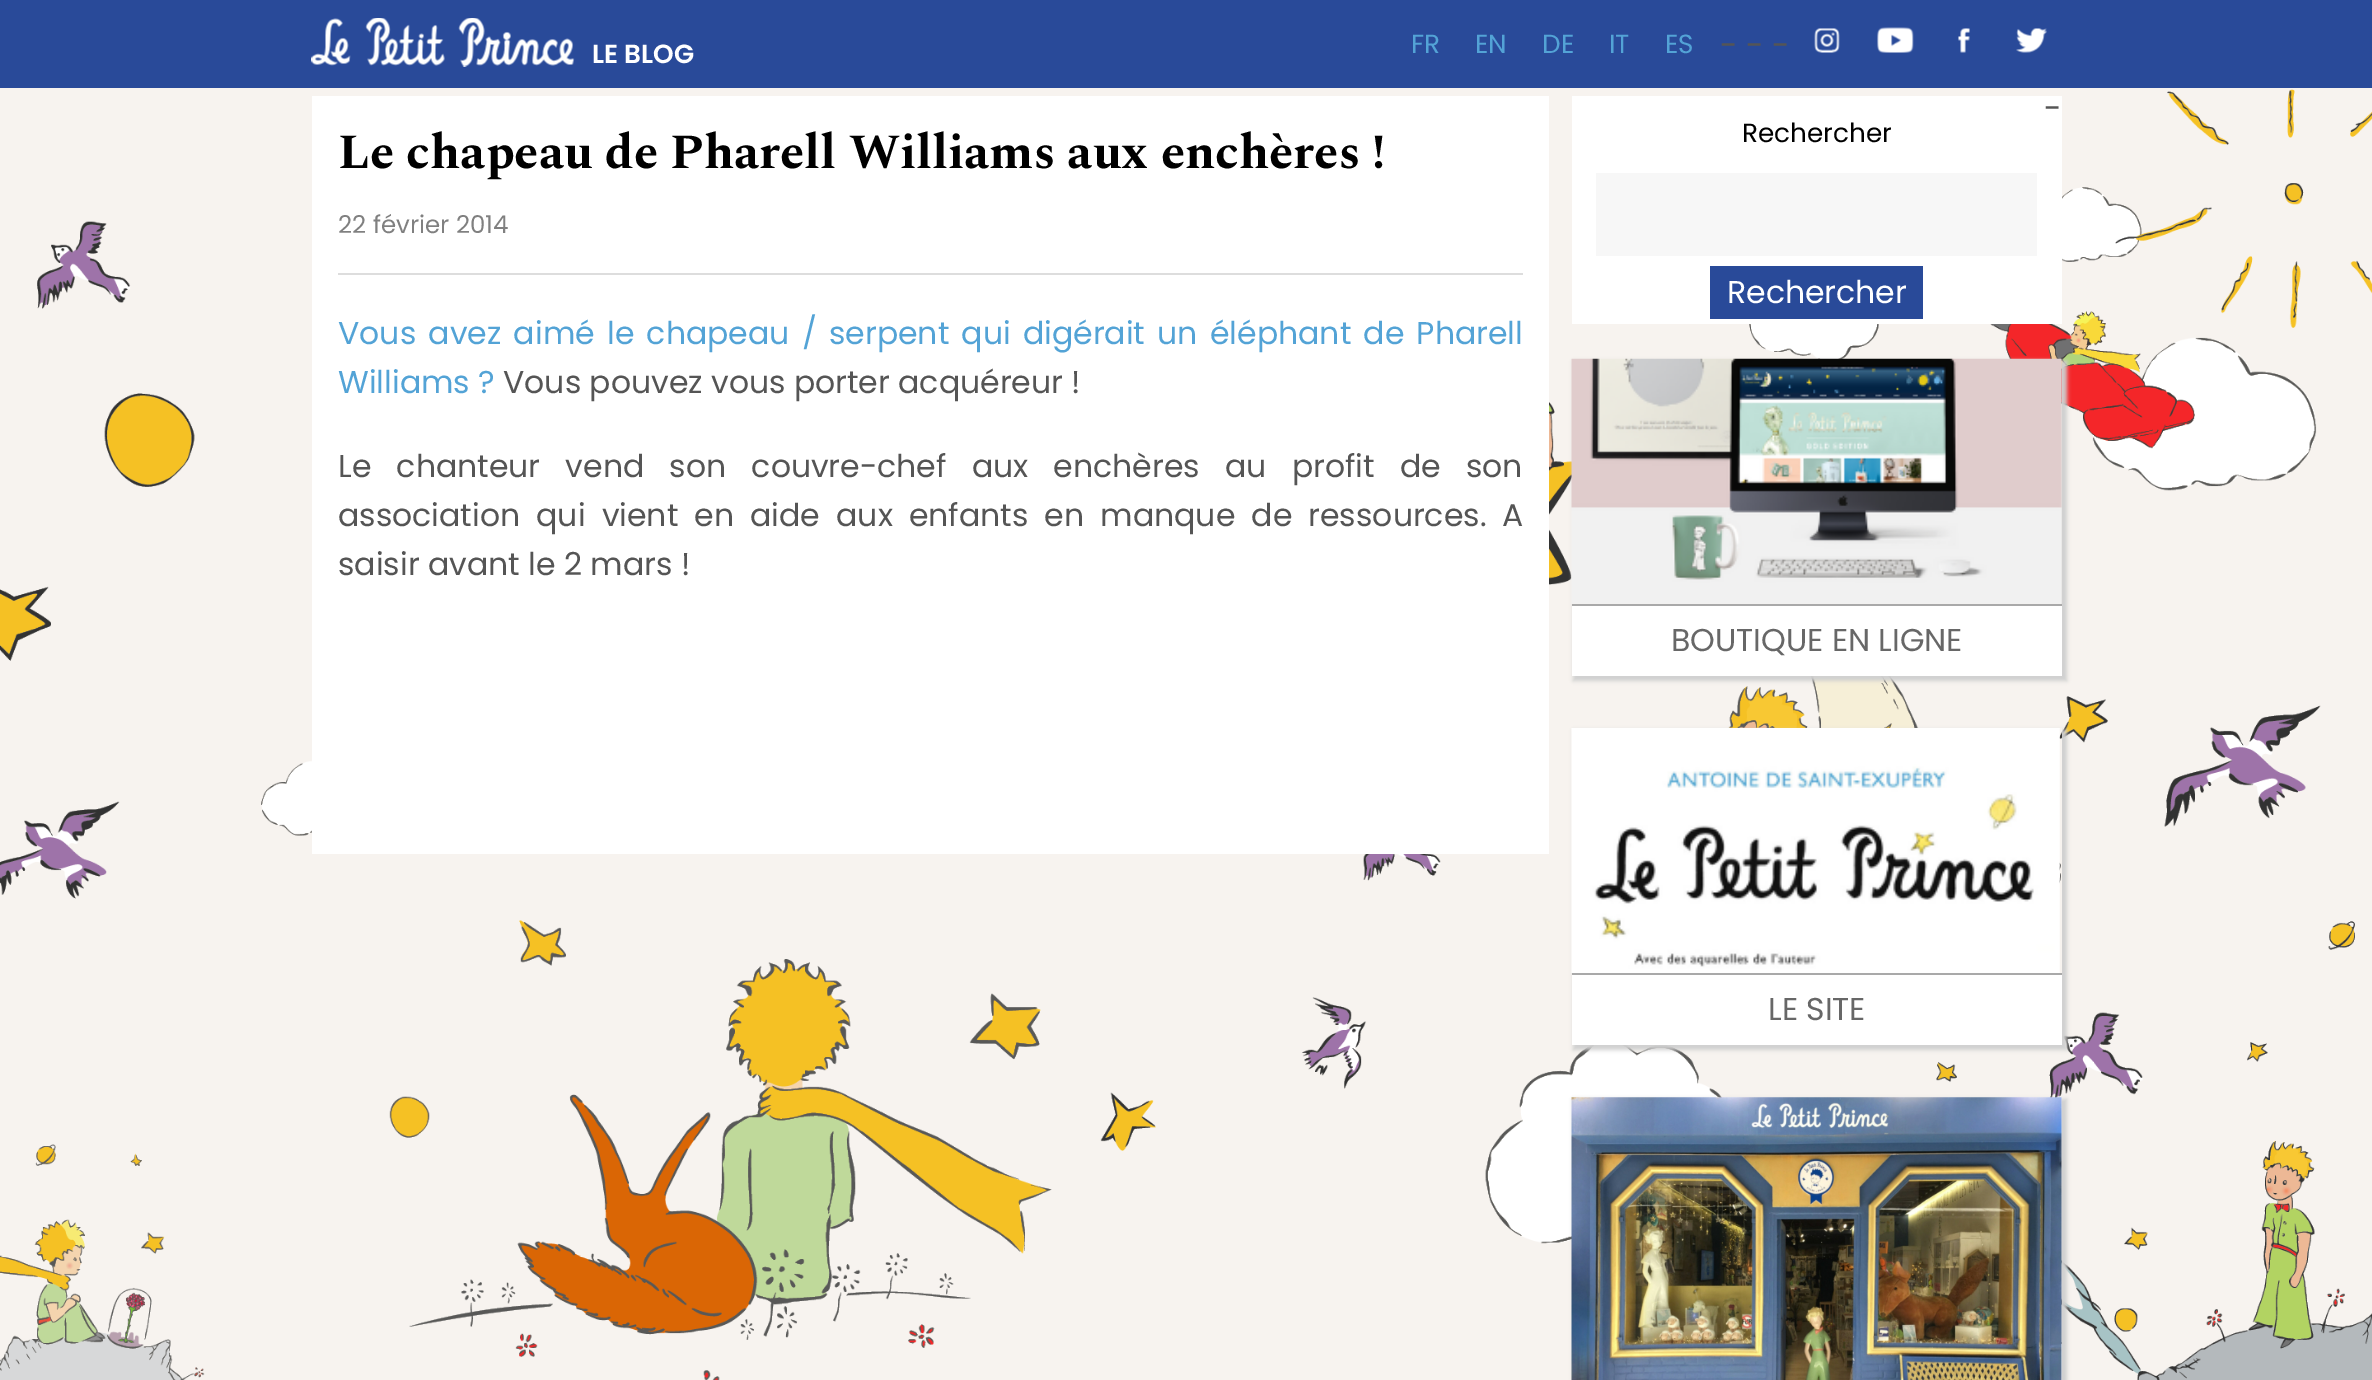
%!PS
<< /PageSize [2372 1380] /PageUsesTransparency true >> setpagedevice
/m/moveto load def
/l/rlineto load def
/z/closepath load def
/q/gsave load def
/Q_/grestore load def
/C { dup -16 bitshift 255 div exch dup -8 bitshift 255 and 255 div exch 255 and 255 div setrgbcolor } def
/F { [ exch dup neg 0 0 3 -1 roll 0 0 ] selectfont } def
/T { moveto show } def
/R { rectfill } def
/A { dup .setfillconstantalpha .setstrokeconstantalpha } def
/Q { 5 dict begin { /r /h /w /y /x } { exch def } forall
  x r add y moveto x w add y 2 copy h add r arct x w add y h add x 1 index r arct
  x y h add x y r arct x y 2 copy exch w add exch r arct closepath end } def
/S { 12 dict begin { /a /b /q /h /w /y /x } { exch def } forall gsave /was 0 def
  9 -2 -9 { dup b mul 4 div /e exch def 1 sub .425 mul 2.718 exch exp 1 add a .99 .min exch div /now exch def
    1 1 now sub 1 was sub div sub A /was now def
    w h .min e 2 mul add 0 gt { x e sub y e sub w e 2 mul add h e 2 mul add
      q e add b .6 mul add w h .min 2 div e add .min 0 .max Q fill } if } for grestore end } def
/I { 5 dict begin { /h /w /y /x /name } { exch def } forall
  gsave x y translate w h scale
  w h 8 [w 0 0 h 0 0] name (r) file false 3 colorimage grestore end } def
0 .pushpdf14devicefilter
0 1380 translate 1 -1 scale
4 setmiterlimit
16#F7F3EF C
0 0 2372 1380 R
(1.rgb) 0 89 2372 1291 I
16#294A99 C
0 0 2372 88 R
(2.rgb) 311 18 264 49 I
/Poppins-SemiBold 26.25 F
16#FFFFFF C
(LE BLOG) 592 63 T
/Poppins-Regular 26.25 F
16#53A3D6 C
(FR) 1411 53 T
(EN) 1475 53 T
(DE) 1542 53 T
(IT) 1609 53 T
(ES) 1665 53 T
/Poppins-Regular 31.5 F
16#555555 C
(- - -) 1720 56 T
(3.rgb) 1814 28 26 25 I
(4.rgb) 1877 27 37 26 I
(5.rgb) 1958 28 12 25 I
(6.rgb) 2016 28 31 25 I
16#FFFFFF C
1572 96 490 228 R
16#555555 C
(-) 2044 119 T
16#FFFFFF C
312 96 1237 758 R
16#DDDDDD C
338 273 1185 2 R
/Spectral-Bold 49 F
16#000000 C
(Le chapeau de Pharell Williams aux enchères !) 338 168 T
/Poppins-Regular 24.5 F
16#808080 C
(22 février 2014) 338 233 T
/Poppins-Regular 31.5 F
16#53A3D6 C
338 344 m 3.9 0 32 (Vous avez aimé le chapeau / serpent qui digérait un éléphant de Pharell) widthshow
(Williams ?) 338 393 T
16#555555 C
(Vous pouvez vous porter acquéreur !) 503 393 T
338 477 m 16.9 0 32 (Le chanteur vend son couvre-chef aux enchères au profit de son) widthshow
338 526 m 7.75 0 32 (association qui vient en aide aux enfants en manque de ressources. A) widthshow
(saisir avant le 2 mars !) 338 575 T
/Poppins-Regular 26.25 F
16#000000 C
(Rechercher) 1742 142 T
16#F7F7F7 C
1596 173 441 83 R
16#294A99 C
1710 266 213 53 R
/Poppins-Regular 31.5 F
16#FFFFFF C
(Rechercher) 1727 303 T
16#CFCFCF C
1573 361 494 320 0 2 1 S
(7.rgb) 1571 358 491 246 I
16#FFFFFF C
1572 606 490 70 R
16#A9A9A9 C
1572 604 490 2 R
16#676767 C
(BOUTIQUE EN LIGNE) 1671 651 T
q
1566 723 m 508 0 l 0 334 l -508 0 l z 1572 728 m 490 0 l 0 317 l -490 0 l z eoclip newpath
16#CFCFCF C
1573 730 494 320 0 2 1 S
Q_
(8.rgb) 1571 728 489 245 I
16#FFFFFF C
1572 975 490 70 R
16#A9A9A9 C
1572 973 490 2 R
16#676767 C
(LE SITE) 1768 1020 T
16#CFCFCF C
1573 1099 494 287 0 2 1 S
16#FFFFFF C
2061 1344 1 36 R
16#A9A9A9 C
2061 1342 1 2 R
(9.rgb) 1571 1097 491 283 I
.poppdf14devicefilter showpage
